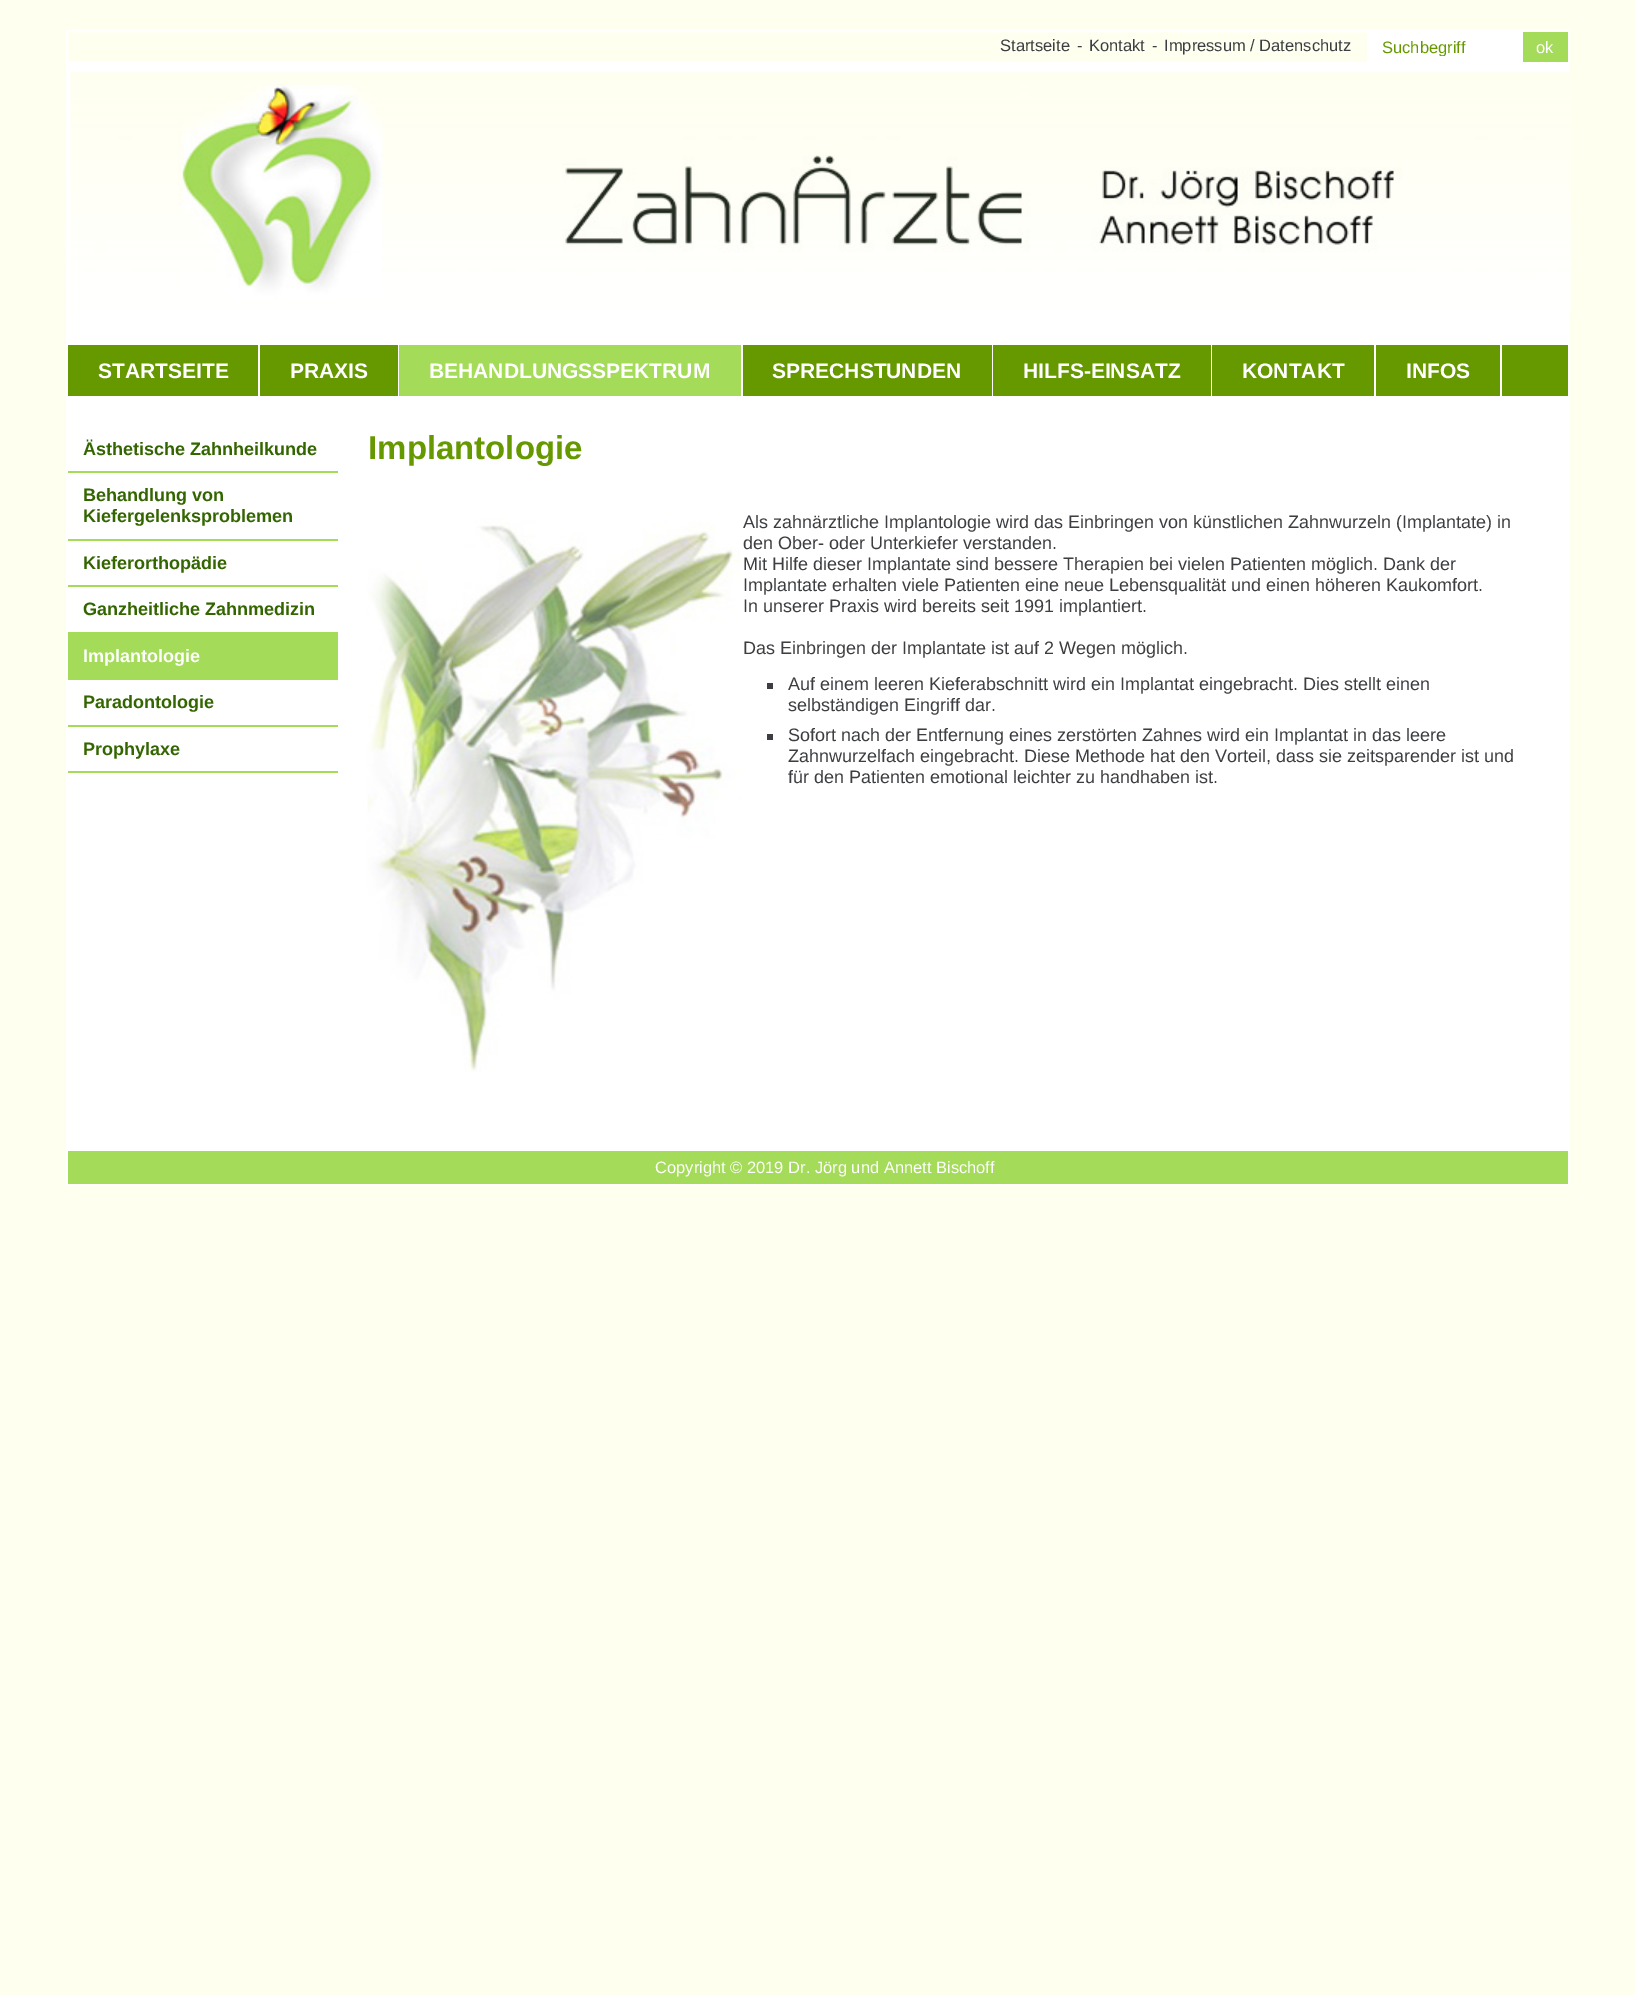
%!PS
<< /PageSize [1635 1995] >> setpagedevice
/q/gsave load def
/Q_/grestore load def
/w/setlinewidth load def
/C { dup -16 bitshift 255 div exch dup -8 bitshift 255 and 255 div exch 255 and 255 div setrgbcolor } def
/F { [ exch dup neg 0 0 3 -1 roll 0 0 ] selectfont } def
/T { moveto show } def
/R { rectfill } def
/I { 5 dict begin { /h /w /y /x /name } { exch def } forall
  gsave x y translate w h scale
  w h 8 [w 0 0 h 0 0] name (r) file false 3 colorimage grestore end } def
0 1995 translate 1 -1 scale
4 setmiterlimit
16#FFFFF0 C
0 0 1635 1995 R
16#FFFFFF C
2 w
67 31 1501 1153 rectstroke
/LiberationSans-Regular 16.5 F
16#3C3E41 C
(Startseite) 1000 51 T
(-) 1077 51 T
(Kontakt) 1089 51 T
(-) 1152 51 T
(Impressum / Datenschutz) 1164 51 T
16#FFFFFF C
1367 32 156 30 R
q
1382 38 127 18 rectclip
16#669900 C
(Suchbegriff) 1382 53 T
Q_
16#A4DB59 C
1523 32 45 30 R
16#FFFFFF C
(ok) 1536 53 T
68 62 1499 1089 R
(1.rgb) 70 72 1501 240 I
16#669900 C
68 345 1500 51 R
16#FFFFFF C
258 345 2 51 R
/LiberationSans-Bold 21 F
(STARTSEITE) 98 378 T
398 345 1 51 R
(PRAXIS) 290 378 T
16#A4DB59 C
399 345 342 51 R
16#FFFFFF C
741 345 2 51 R
(BEHANDLUNGSSPEKTRUM) 429 378 T
992 345 1 51 R
(SPRECHSTUNDEN) 772 378 T
1211 345 1 51 R
(HILFS-EINSATZ) 1023 378 T
1374 345 2 51 R
(KONTAKT) 1242 378 T
1500 345 2 51 R
(INFOS) 1406 378 T
16#A4DB59 C
68 471 270 2 R
/LiberationSans-Bold 18 F
16#336600 C
(Ästhetische Zahnheilkunde) 83 455 T
16#A4DB59 C
68 539 270 2 R
16#336600 C
(Behandlung von) 83 501 T
(Kiefergelenksproblemen) 83 522 T
16#A4DB59 C
68 585 270 2 R
16#336600 C
(Kieferorthopädie) 83 569 T
16#A4DB59 C
68 632 270 48 R
16#336600 C
(Ganzheitliche Zahnmedizin) 83 615 T
16#FFFFFF C
(Implantologie) 83 662 T
16#A4DB59 C
68 725 270 2 R
16#336600 C
(Paradontologie) 83 708 T
16#A4DB59 C
68 771 270 2 R
16#336600 C
(Prophylaxe) 83 755 T
/LiberationSans-Bold 33 F
16#669900 C
(Implantologie) 368 459 T
(2.rgb) 367 519 375 553 I
/LiberationSans-Regular 18 F
16#3C3E41 C
(Als zahnärztliche Implantologie wird das Einbringen von künstlichen Zahnwurzeln \(Implantate\) in) 743 528 T
(den Ober- oder Unterkiefer verstanden.) 743 549 T
(Mit Hilfe dieser Implantate sind bessere Therapien bei vielen Patienten möglich. Dank der) 743 570 T
(Implantate erhalten viele Patienten eine neue Lebensqualität und einen höheren Kaukomfort.) 743 591 T
(In unserer Praxis wird bereits seit 1991 implantiert.) 743 612 T
(Das Einbringen der Implantate ist auf 2 Wegen möglich.) 743 654 T
767 683 6 6 R
(Auf einem leeren Kieferabschnitt wird ein Implantat eingebracht. Dies stellt einen) 788 690 T
(selbständigen Eingriff dar.) 788 711 T
767 734 6 6 R
(Sofort nach der Entfernung eines zerstörten Zahnes wird ein Implantat in das leere) 788 741 T
(Zahnwurzelfach eingebracht. Diese Methode hat den Vorteil, dass sie zeitsparender ist und) 788 762 T
(für den Patienten emotional leichter zu handhaben ist.) 788 783 T
16#A4DB59 C
68 1151 1500 33 R
/LiberationSans-Regular 16.5 F
16#FFFFFF C
(Copyright © 2019 Dr. Jörg und Annett Bischoff) 655 1173 T
showpage
